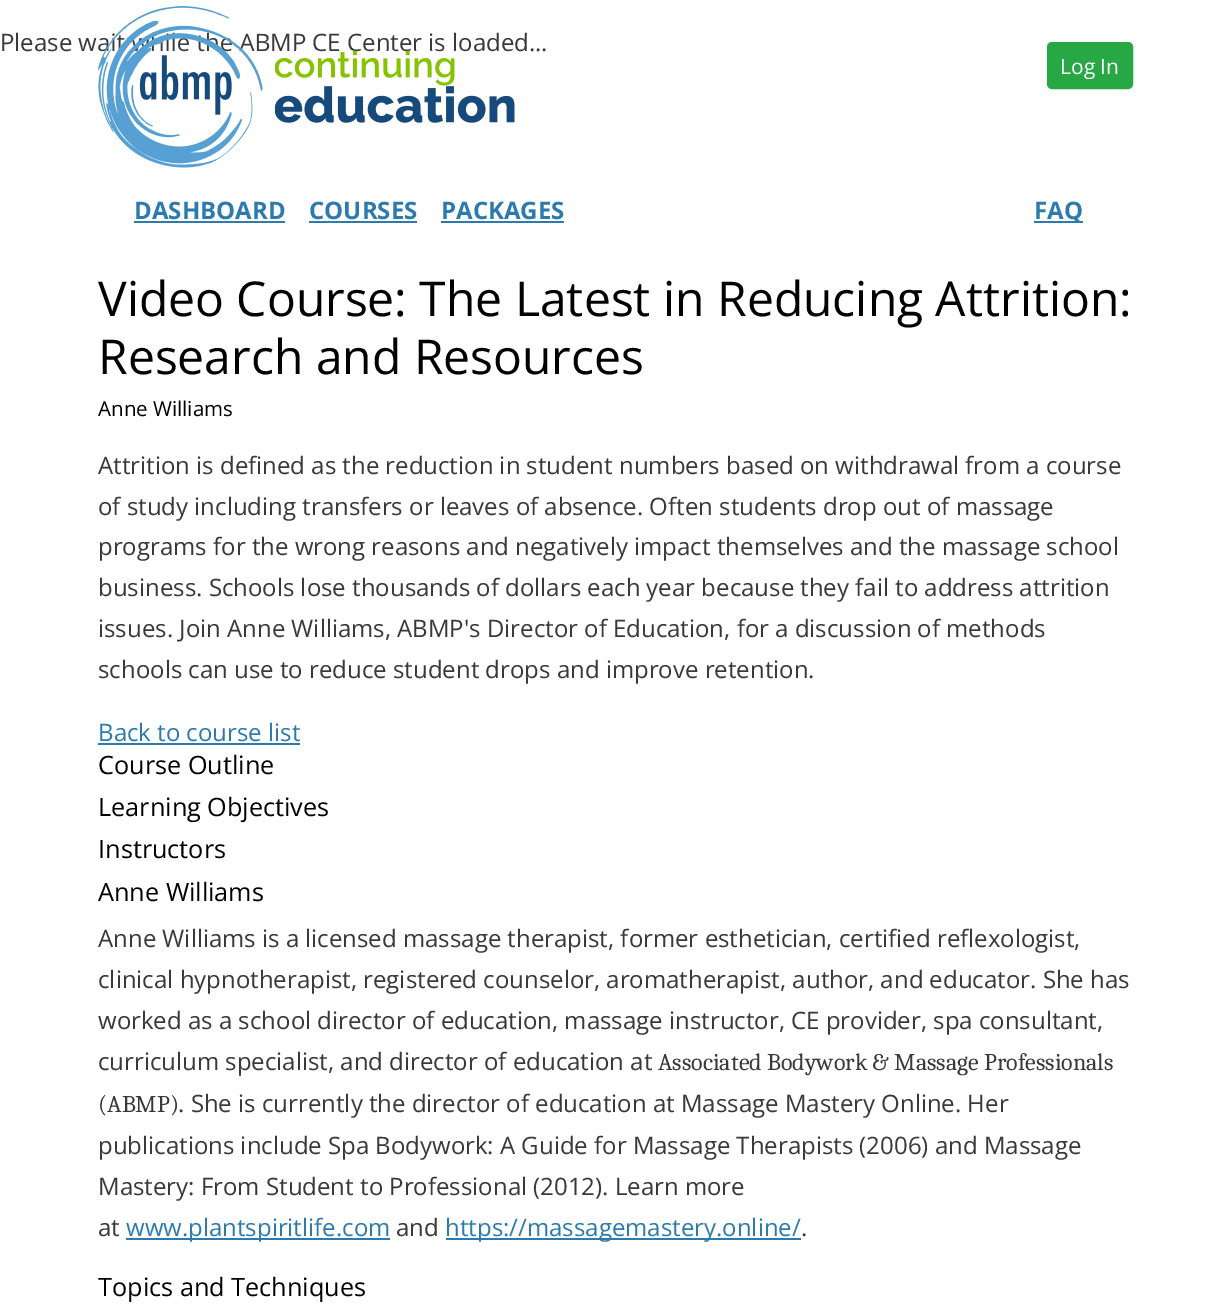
%!PS
<< /PageSize [1230 1313] >> setpagedevice
/f/fill load def
/s/stroke load def
/q/gsave load def
/Q_/grestore load def
/w/setlinewidth load def
/C { dup -16 bitshift 255 div exch dup -8 bitshift 255 and 255 div exch 255 and 255 div setrgbcolor } def
/F { [ exch dup neg 0 0 3 -1 roll 0 0 ] selectfont } def
/T { moveto show } def
/R { rectfill } def
/Q { 5 dict begin { /r /h /w /y /x } { exch def } forall
  x r add y moveto x w add y 2 copy h add r arct x w add y h add x 1 index r arct
  x y h add x y r arct x y 2 copy exch w add exch r arct closepath end } def
/I { 5 dict begin { /h /w /y /x /name } { exch def } forall
  gsave x y translate w h scale
  w h 8 [w 0 0 h 0 0] name (r) file false 3 colorimage grestore end } def
0 1313 translate 1 -1 scale
4 setmiterlimit
16#FFFFFF C
0 0 1230 1313 R
/OpenSans-Regular 24 F
16#393939 C
(Please wait while the ABMP CE Center is loaded...) 0 51 T
(1.rgb) 98 6 165 162 I
(2.rgb) 275 50 240 73 I
16#28A745 C
1048 43 84 45 4 Q q f Q_
2 w
s
/OpenSans-Regular 21 F
16#FFFFFF C
(Log In) 1060 74 T
/OpenSans-Bold 24 F
16#2D7BAE C
(DASHBOARD) 134 219 T
134 221 151 2 R
(COURSES) 309 219 T
309 221 108 2 R
(PACKAGES) 441 219 T
441 221 123 2 R
1034 221 49 2 R
(FAQ) 1034 219 T
/OpenSans-Regular 48 F
16#000000 C
(Video Course: The Latest in Reducing Attrition:) 98 316 T
(Research and Resources) 98 374 T
/OpenSans-Regular 20.5 F
(Anne Williams) 98 416 T
/OpenSans-Regular 24 F
16#393939 C
(Attrition is defined as the reduction in student numbers based on withdrawal from a course) 98 474 T
(of study including transfers or leaves of absence. Often students drop out of massage) 98 515 T
(programs for the wrong reasons and negatively impact themselves and the massage school) 98 555 T
(business. Schools lose thousands of dollars each year because they fail to address attrition) 98 596 T
(issues. Join Anne Williams, ABMP's Director of Education, for a discussion of methods) 98 637 T
(schools can use to reduce student drops and improve retention.) 98 678 T
16#2D7BAE C
(Back to course list) 98 741 T
98 743 202 2 R
/OpenSans-Regular 25.25 F
16#000000 C
(Course Outline) 98 774 T
(Learning Objectives) 98 816 T
(Instructors) 98 858 T
(Anne Williams) 98 901 T
/OpenSans-Regular 24 F
16#393939 C
(Anne Williams is a licensed massage therapist, former esthetician, certified reflexologist,) 98 947 T
(clinical hypnotherapist, registered counselor, aromatherapist, author, and educator. She has) 98 988 T
(worked as a school director of education, massage instructor, CE provider, spa consultant,) 98 1029 T
(curriculum specialist, and director of education at) 98 1070 T
/Caladea-Regular 24 F
(Associated Bodywork & Massage Professionals) 658 1070 T
(\(ABMP\)) 98 1112 T
/OpenSans-Regular 24 F
(. She is currently the director of education at Massage Mastery Online. Her) 178 1112 T
(publications include Spa Bodywork: A Guide for Massage Therapists \(2006\) and Massage) 98 1154 T
(Mastery: From Student to Professional \(2012\). Learn more) 98 1195 T
(at) 98 1236 T
16#2D7BAE C
126 1238 264 2 R
(www.plantspiritlife.com) 126 1236 T
16#393939 C
(and) 396 1236 T
16#2D7BAE C
446 1238 355 2 R
(https://massagemastery.online/) 445 1236 T
16#393939 C
(.) 801 1236 T
/OpenSans-Regular 25.25 F
16#000000 C
(Topics and Techniques) 98 1296 T
showpage
